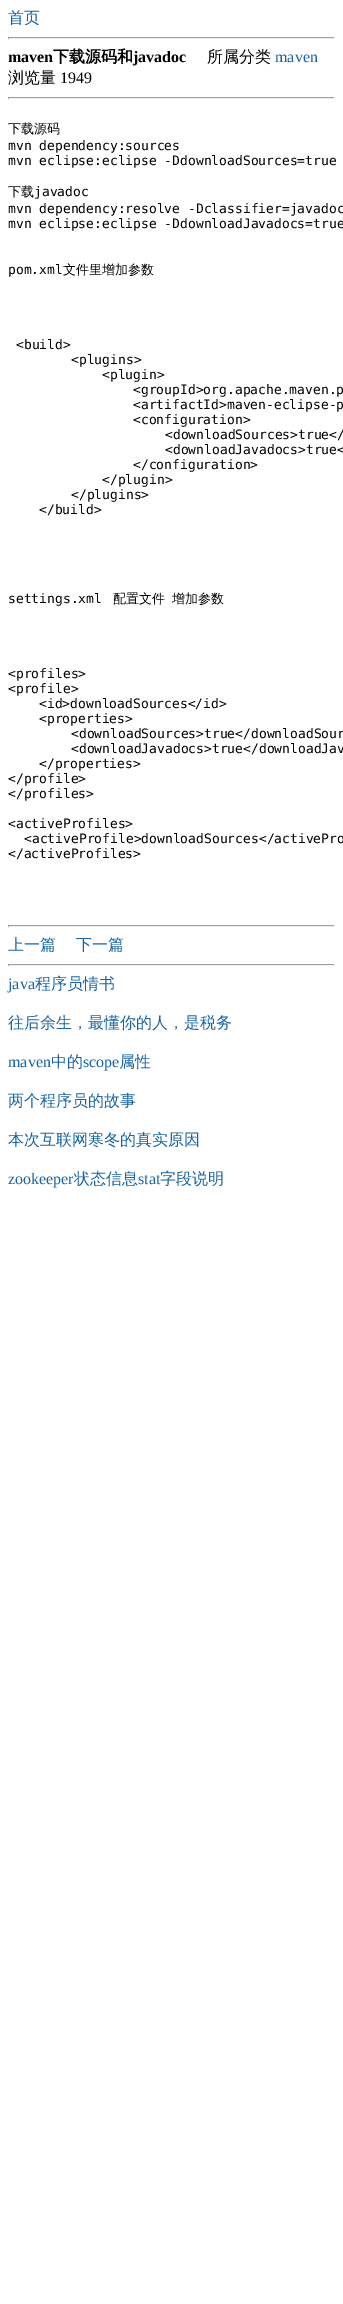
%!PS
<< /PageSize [343 2304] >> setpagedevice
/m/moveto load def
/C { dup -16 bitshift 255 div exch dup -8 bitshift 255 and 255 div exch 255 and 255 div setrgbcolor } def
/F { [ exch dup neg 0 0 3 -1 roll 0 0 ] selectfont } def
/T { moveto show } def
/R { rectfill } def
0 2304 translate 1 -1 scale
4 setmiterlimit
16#FFFFFF C
0 0 343 2304 R
/WenQuanYiZenHei-Medium 16 F
16#1863A1 C
(首页) 8 23 T
16#9F9F9F C
8 37 327 1 R
16#EEEEEE C
334 37 1 2 R
8 38 327 1 R
16#9F9F9F C
8 37 1 2 R
/LiberationSerif-Bold 16 F
16#000000 C
(maven) 8 62 T
/WenQuanYiZenHei-Bold 16 F
(下载源码和) 53 62 T
/LiberationSerif-Bold 16 F
(javadoc) 133 62 T
/WenQuanYiZenHei-Medium 16 F
(所属分类) 207 62 T
/LiberationSerif-Regular 16 F
16#1863A1 C
(maven) 275 62 T
/WenQuanYiZenHei-Medium 16 F
16#000000 C
(浏览量) 8 83 T
/LiberationSerif-Regular 16 F
(1949) 60 83 T
16#9F9F9F C
8 97 327 1 R
16#EEEEEE C
334 97 1 2 R
8 98 327 1 R
16#9F9F9F C
8 97 1 2 R
/WenQuanYiZenHei-Medium 13 F
16#000000 C
(下载源码) 8 133 T
/DejaVuSansMono-Regular 13 F
(mvn dependency:sources) 8 150 T
(mvn eclipse:eclipse -DdownloadSources=true) 8 165 T
/WenQuanYiZenHei-Medium 13 F
(下载) 8 196 T
/DejaVuSansMono-Regular 13 F
(javadoc) 34 196 T
(mvn dependency:resolve -Dclassifier=javadoc) 8 213 T
(mvn eclipse:eclipse -DdownloadJavadocs=true) 8 228 T
(pom.xml) 8 274 T
/WenQuanYiZenHei-Medium 13 F
(文件里增加参数) 63 274 T
/DejaVuSansMono-Regular 13 F
(<build>) 16 349 T
(<plugins>) 71 364 T
(<plugin>) 102 379 T
(<groupId>org.apache.maven.p) 133 394 T
(<artifactId>maven-eclipse-p) 133 409 T
(<configuration>) 133 424 T
(<downloadSources>true</) 165 439 T
(<downloadJavadocs>true<) 165 454 T
(</configuration>) 133 469 T
(</plugin>) 102 484 T
(</plugins>) 71 499 T
(</build>) 39 514 T
(settings.xml) 8 603 T
/WenQuanYiZenHei-Medium 13 F
113 603 m 3 0 32 (配置文件 增加参数) widthshow
/DejaVuSansMono-Regular 13 F
(<profiles>) 8 678 T
(<profile>) 8 693 T
(<id>downloadSources</id>) 39 708 T
(<properties>) 39 723 T
(<downloadSources>true</downloadSour) 71 738 T
(<downloadJavadocs>true</downloadJav) 71 753 T
(</properties>) 39 768 T
(</profile>) 8 783 T
(</profiles>) 8 798 T
(<activeProfiles>) 8 828 T
(<activeProfile>downloadSources</activePro) 24 843 T
(</activeProfiles>) 8 858 T
16#9F9F9F C
8 925 327 1 R
16#EEEEEE C
334 925 1 2 R
8 926 327 1 R
16#9F9F9F C
8 925 1 2 R
/WenQuanYiZenHei-Medium 16 F
16#1863A1 C
(上一篇) 8 950 T
(下一篇) 76 950 T
16#9F9F9F C
8 964 327 1 R
16#EEEEEE C
334 964 1 2 R
8 965 327 1 R
16#9F9F9F C
8 964 1 2 R
/LiberationSerif-Regular 16 F
16#1863A1 C
(java) 8 989 T
/WenQuanYiZenHei-Medium 16 F
(程序员情书) 35 989 T
(往后余生，最懂你的人，是税务) 8 1028 T
/LiberationSerif-Regular 16 F
(maven) 8 1067 T
/WenQuanYiZenHei-Medium 16 F
(中的) 51 1067 T
/LiberationSerif-Regular 16 F
(scope) 83 1067 T
/WenQuanYiZenHei-Medium 16 F
(属性) 119 1067 T
(两个程序员的故事) 8 1106 T
(本次互联网寒冬的真实原因) 8 1145 T
/LiberationSerif-Regular 16 F
(zookeeper) 8 1184 T
/WenQuanYiZenHei-Medium 16 F
(状态信息) 74 1184 T
/LiberationSerif-Regular 16 F
(stat) 138 1184 T
/WenQuanYiZenHei-Medium 16 F
(字段说明) 160 1184 T
showpage
